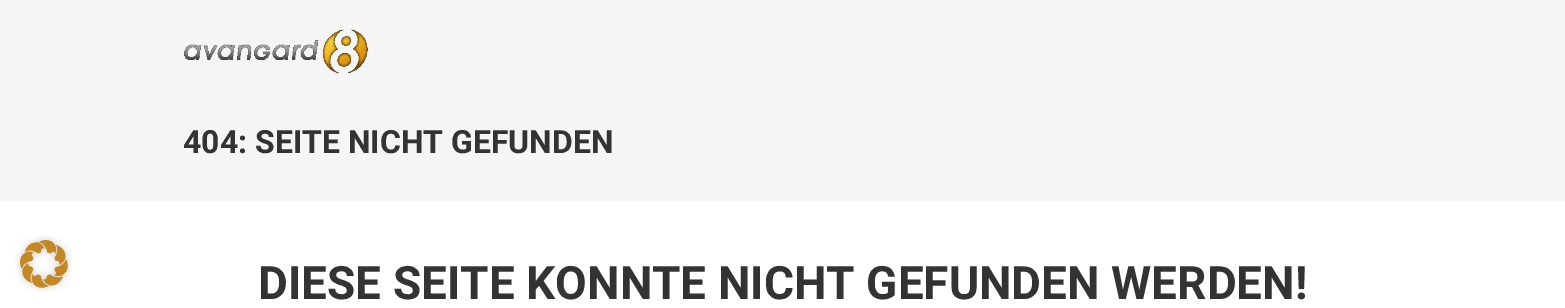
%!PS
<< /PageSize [1565 308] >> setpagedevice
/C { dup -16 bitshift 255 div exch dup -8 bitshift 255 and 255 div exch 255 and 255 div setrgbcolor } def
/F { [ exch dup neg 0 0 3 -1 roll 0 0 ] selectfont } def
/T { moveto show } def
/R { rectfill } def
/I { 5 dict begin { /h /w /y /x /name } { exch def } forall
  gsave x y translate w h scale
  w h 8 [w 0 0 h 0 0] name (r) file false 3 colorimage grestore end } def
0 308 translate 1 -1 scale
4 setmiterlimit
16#FFFFFF C
0 0 1565 308 R
(1.rgb) 15 235 57 57 I
16#F5F5F5 C
0 0 1565 201 R
(2.rgb) 184 29 184 45 I
/Roboto-Bold 32 F
16#333333 C
(404: SEITE NICHT GEFUNDEN) 183 153 T
/Roboto-Bold 46 F
(DIESE SEITE KONNTE NICHT GEFUNDEN WERDEN!) 258 299 T
showpage
